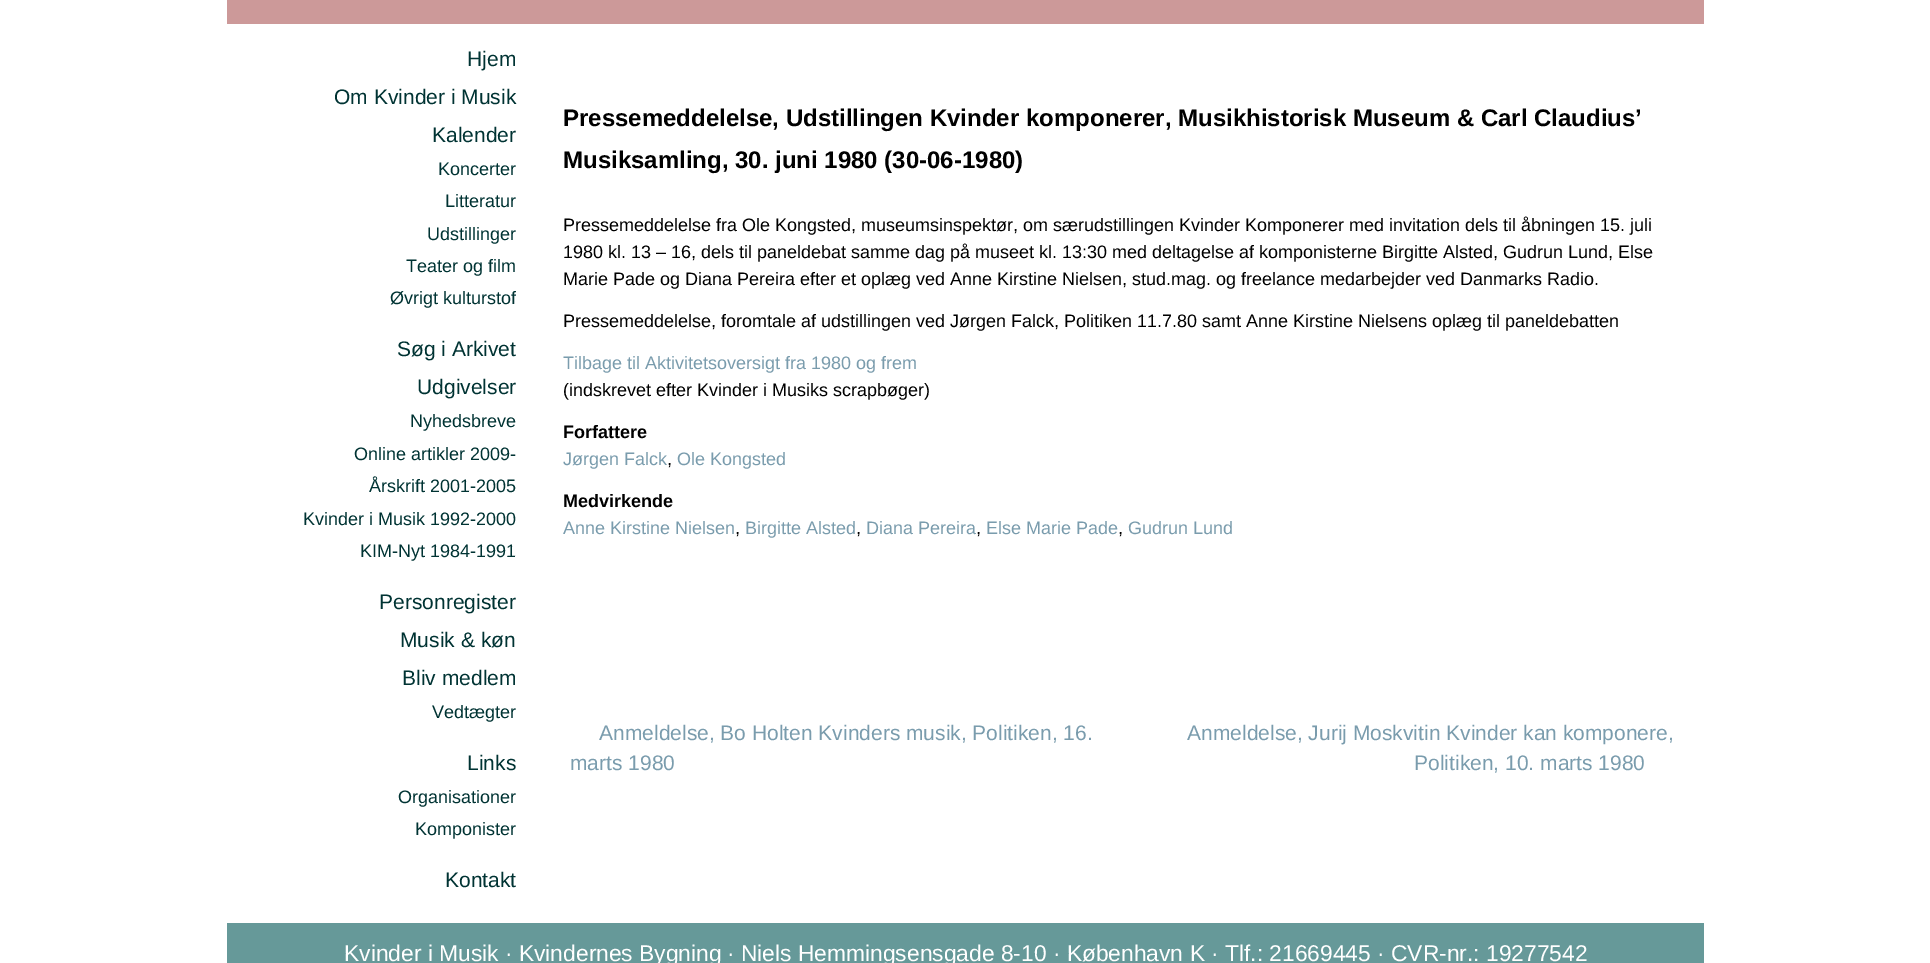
%!PS
<< /PageSize [1930 963] >> setpagedevice
/C { dup -16 bitshift 255 div exch dup -8 bitshift 255 and 255 div exch 255 and 255 div setrgbcolor } def
/F { [ exch dup neg 0 0 3 -1 roll 0 0 ] selectfont } def
/T { moveto show } def
/R { rectfill } def
0 963 translate 1 -1 scale
4 setmiterlimit
16#FFFFFF C
0 0 1930 963 R
16#CC9999 C
227 0 1477 24 R
/LiberationSans-Regular 21 F
16#003333 C
(Hjem) 467 66 T
(Om Kvinder i Musik) 334 104 T
(Kalender) 432 142 T
/LiberationSans-Regular 18 F
(Koncerter) 438 175 T
(Litteratur) 445 207 T
(Udstillinger) 427 240 T
(Teater og film) 406 272 T
(Øvrigt kulturstof) 390 304 T
/LiberationSans-Regular 21 F
(Søg i Arkivet) 397 356 T
(Udgivelser) 417 394 T
/LiberationSans-Regular 18 F
(Nyhedsbreve) 410 427 T
(Online artikler 2009-) 354 460 T
(Årskrift 2001-2005) 369 492 T
(Kvinder i Musik 1992-2000) 303 525 T
(KIM-Nyt 1984-1991) 360 557 T
/LiberationSans-Regular 21 F
(Personregister) 379 609 T
(Musik & køn) 400 647 T
(Bliv medlem) 402 685 T
/LiberationSans-Regular 18 F
(Vedtægter) 432 718 T
/LiberationSans-Regular 21 F
(Links) 467 770 T
/LiberationSans-Regular 18 F
(Organisationer) 398 803 T
(Komponister) 415 835 T
/LiberationSans-Regular 21 F
(Kontakt) 445 887 T
/LiberationSans-Bold 24 F
16#000000 C
(Pressemeddelelse, Udstillingen Kvinder komponerer, Musikhistorisk Museum & Carl Claudius’) 563 126 T
(Musiksamling, 30. juni 1980 \(30-06-1980\)) 563 168 T
/LiberationSans-Regular 18 F
(Pressemeddelelse fra Ole Kongsted, museumsinspektør, om særudstillingen Kvinder Komponerer med invitation dels til åbningen 15. juli) 563 231 T
(1980 kl. 13 – 16, dels til paneldebat samme dag på museet kl. 13:30 med deltagelse af komponisterne Birgitte Alsted, Gudrun Lund, Else) 563 258 T
(Marie Pade og Diana Pereira efter et oplæg ved Anne Kirstine Nielsen, stud.mag. og freelance medarbejder ved Danmarks Radio.) 563 285 T
(Pressemeddelelse, foromtale af udstillingen ved Jørgen Falck, Politiken 11.7.80 samt Anne Kirstine Nielsens oplæg til paneldebatten) 563 327 T
16#7A9CAD C
(Tilbage til Aktivitetsoversigt fra 1980 og frem) 563 369 T
16#000000 C
(\(indskrevet efter Kvinder i Musiks scrapbøger\)) 563 396 T
/LiberationSans-Bold 18 F
(Forfattere) 563 438 T
/LiberationSans-Regular 18 F
16#7A9CAD C
(Jørgen Falck) 563 465 T
16#000000 C
(,) 667 465 T
16#7A9CAD C
(Ole Kongsted) 677 465 T
/LiberationSans-Bold 18 F
16#000000 C
(Medvirkende) 563 507 T
/LiberationSans-Regular 18 F
16#7A9CAD C
(Anne Kirstine Nielsen) 563 534 T
16#000000 C
(,) 735 534 T
16#7A9CAD C
(Birgitte Alsted) 745 534 T
16#000000 C
(,) 856 534 T
16#7A9CAD C
(Diana Pereira) 866 534 T
16#000000 C
(,) 976 534 T
16#7A9CAD C
(Else Marie Pade) 986 534 T
16#000000 C
(,) 1118 534 T
16#7A9CAD C
(Gudrun Lund) 1128 534 T
/LiberationSans-Regular 21 F
(Anmeldelse, Bo Holten Kvinders musik, Politiken, 16.) 599 740 T
(marts 1980) 570 770 T
(Anmeldelse, Jurij Moskvitin Kvinder kan komponere,) 1187 740 T
(Politiken, 10. marts 1980) 1414 770 T
16#669999 C
227 923 1477 40 R
/LiberationSans-Regular 22.8 F
16#FFFFFF C
(Kvinder i Musik · Kvindernes Bygning) 344 961 T
(· Niels Hemmingsensgade 8-10 · København K · Tlf.: 21669445 · CVR-nr.: 19277542) 727 961 T
showpage
